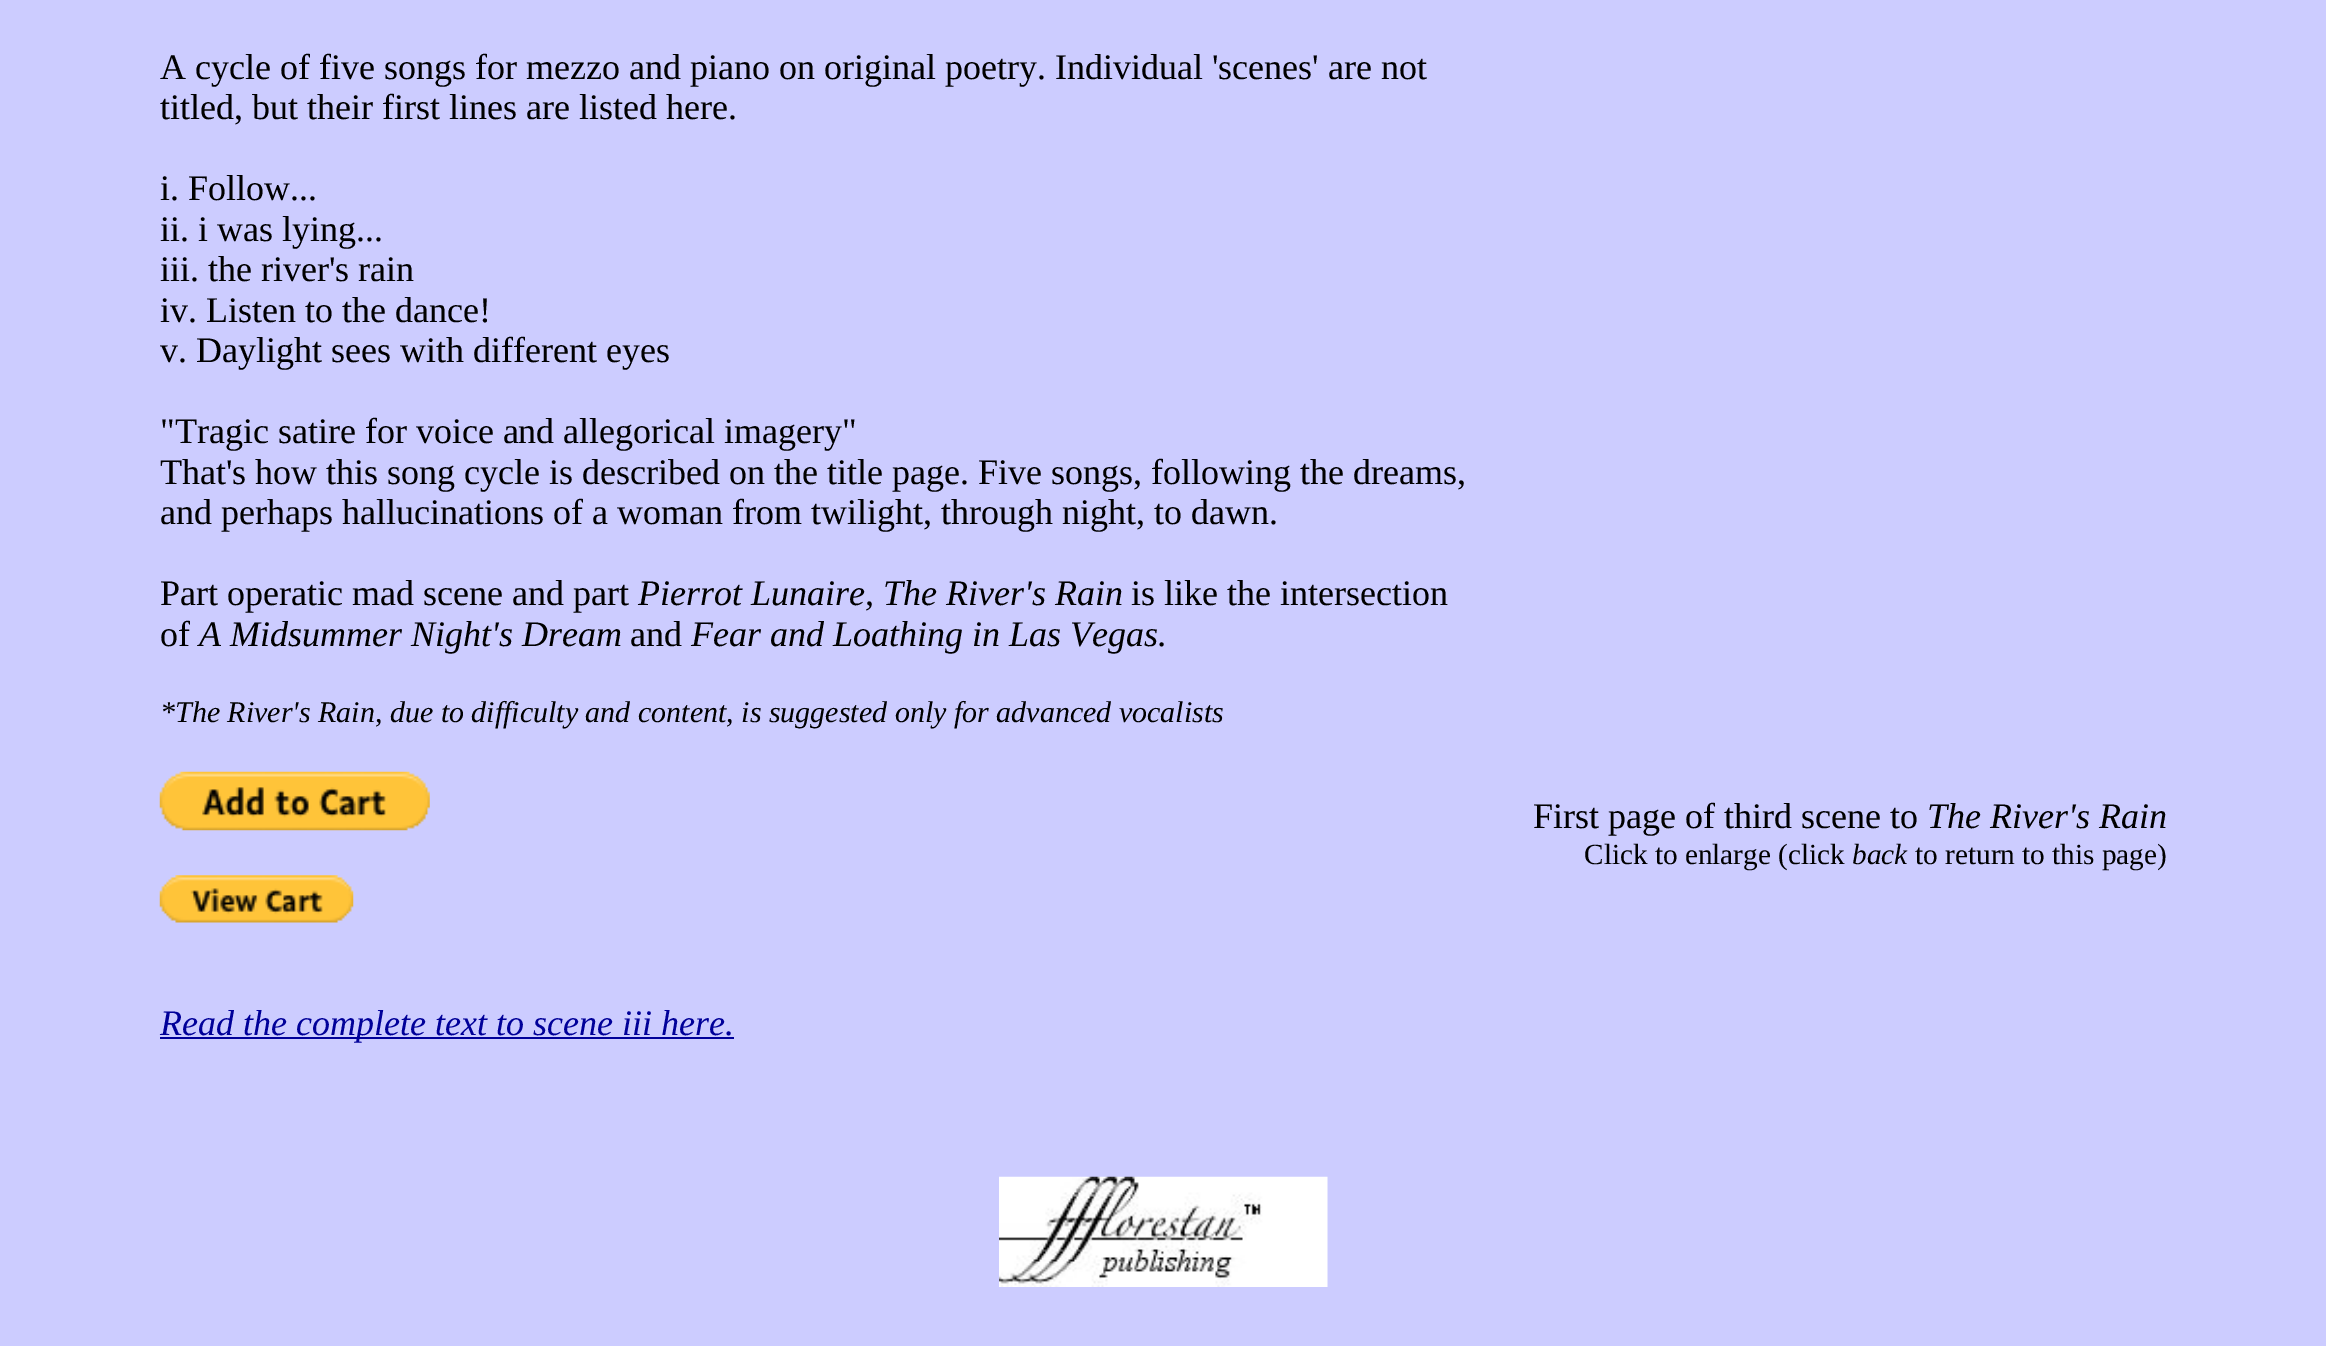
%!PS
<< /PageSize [2326 1346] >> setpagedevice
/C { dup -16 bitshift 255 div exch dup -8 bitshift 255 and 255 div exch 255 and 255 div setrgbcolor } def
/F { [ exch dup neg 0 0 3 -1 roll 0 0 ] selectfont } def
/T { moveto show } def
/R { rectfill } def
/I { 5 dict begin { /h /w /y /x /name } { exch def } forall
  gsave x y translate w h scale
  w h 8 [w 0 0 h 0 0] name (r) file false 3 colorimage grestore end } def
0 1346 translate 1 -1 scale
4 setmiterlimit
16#CCCCFF C
0 0 2326 1346 R
/LiberationSerif-Regular 36 F
16#000000 C
(A cycle of five songs for mezzo and piano on original poetry. Individual 'scenes' are not) 160 79 T
(titled, but their first lines are listed here.) 160 119 T
(i. Follow...) 160 200 T
(ii. i was lying...) 160 241 T
(iii. the river's rain) 160 281 T
(iv. Listen to the dance!) 160 322 T
(v. Daylight sees with different eyes) 160 362 T
("Tragic satire for voice and allegorical imagery") 160 443 T
(That's how this song cycle is described on the title page. Five songs, following the dreams,) 160 484 T
(and perhaps hallucinations of a woman from twilight, through night, to dawn.) 160 524 T
(Part operatic mad scene and part) 160 605 T
/LiberationSerif-Italic 36 F
(Pierrot Lunaire, The River's Rain) 638 605 T
/LiberationSerif-Regular 36 F
(is like the intersection) 1131 605 T
(of) 160 646 T
/LiberationSerif-Italic 36 F
(A Midsummer Night's Dream) 199 646 T
/LiberationSerif-Regular 36 F
(and) 630 646 T
/LiberationSerif-Italic 36 F
(Fear and Loathing in Las Vegas.) 691 646 T
/LiberationSerif-Italic 30 F
(*The River's Rain, due to difficulty and content, is suggested only for advanced vocalists) 160 722 T
(1.rgb) 159 771 271 60 I
(2.rgb) 159 875 195 48 I
16#000099 C
160 1037 574 2 R
/LiberationSerif-Italic 36 F
(Read the complete text to scene iii here.) 160 1035 T
/LiberationSerif-Regular 36 F
16#000000 C
(First page of third scene to) 1533 828 T
/LiberationSerif-Italic 36 F
(The River's Rain) 1927 828 T
/LiberationSerif-Regular 29.25 F
(Click to enlarge \(click) 1584 864 T
/LiberationSerif-Italic 29.25 F
(back) 1852 864 T
/LiberationSerif-Regular 29.25 F
(to return to this page\)) 1915 864 T
(3.rgb) 999 1176 329 111 I
showpage
